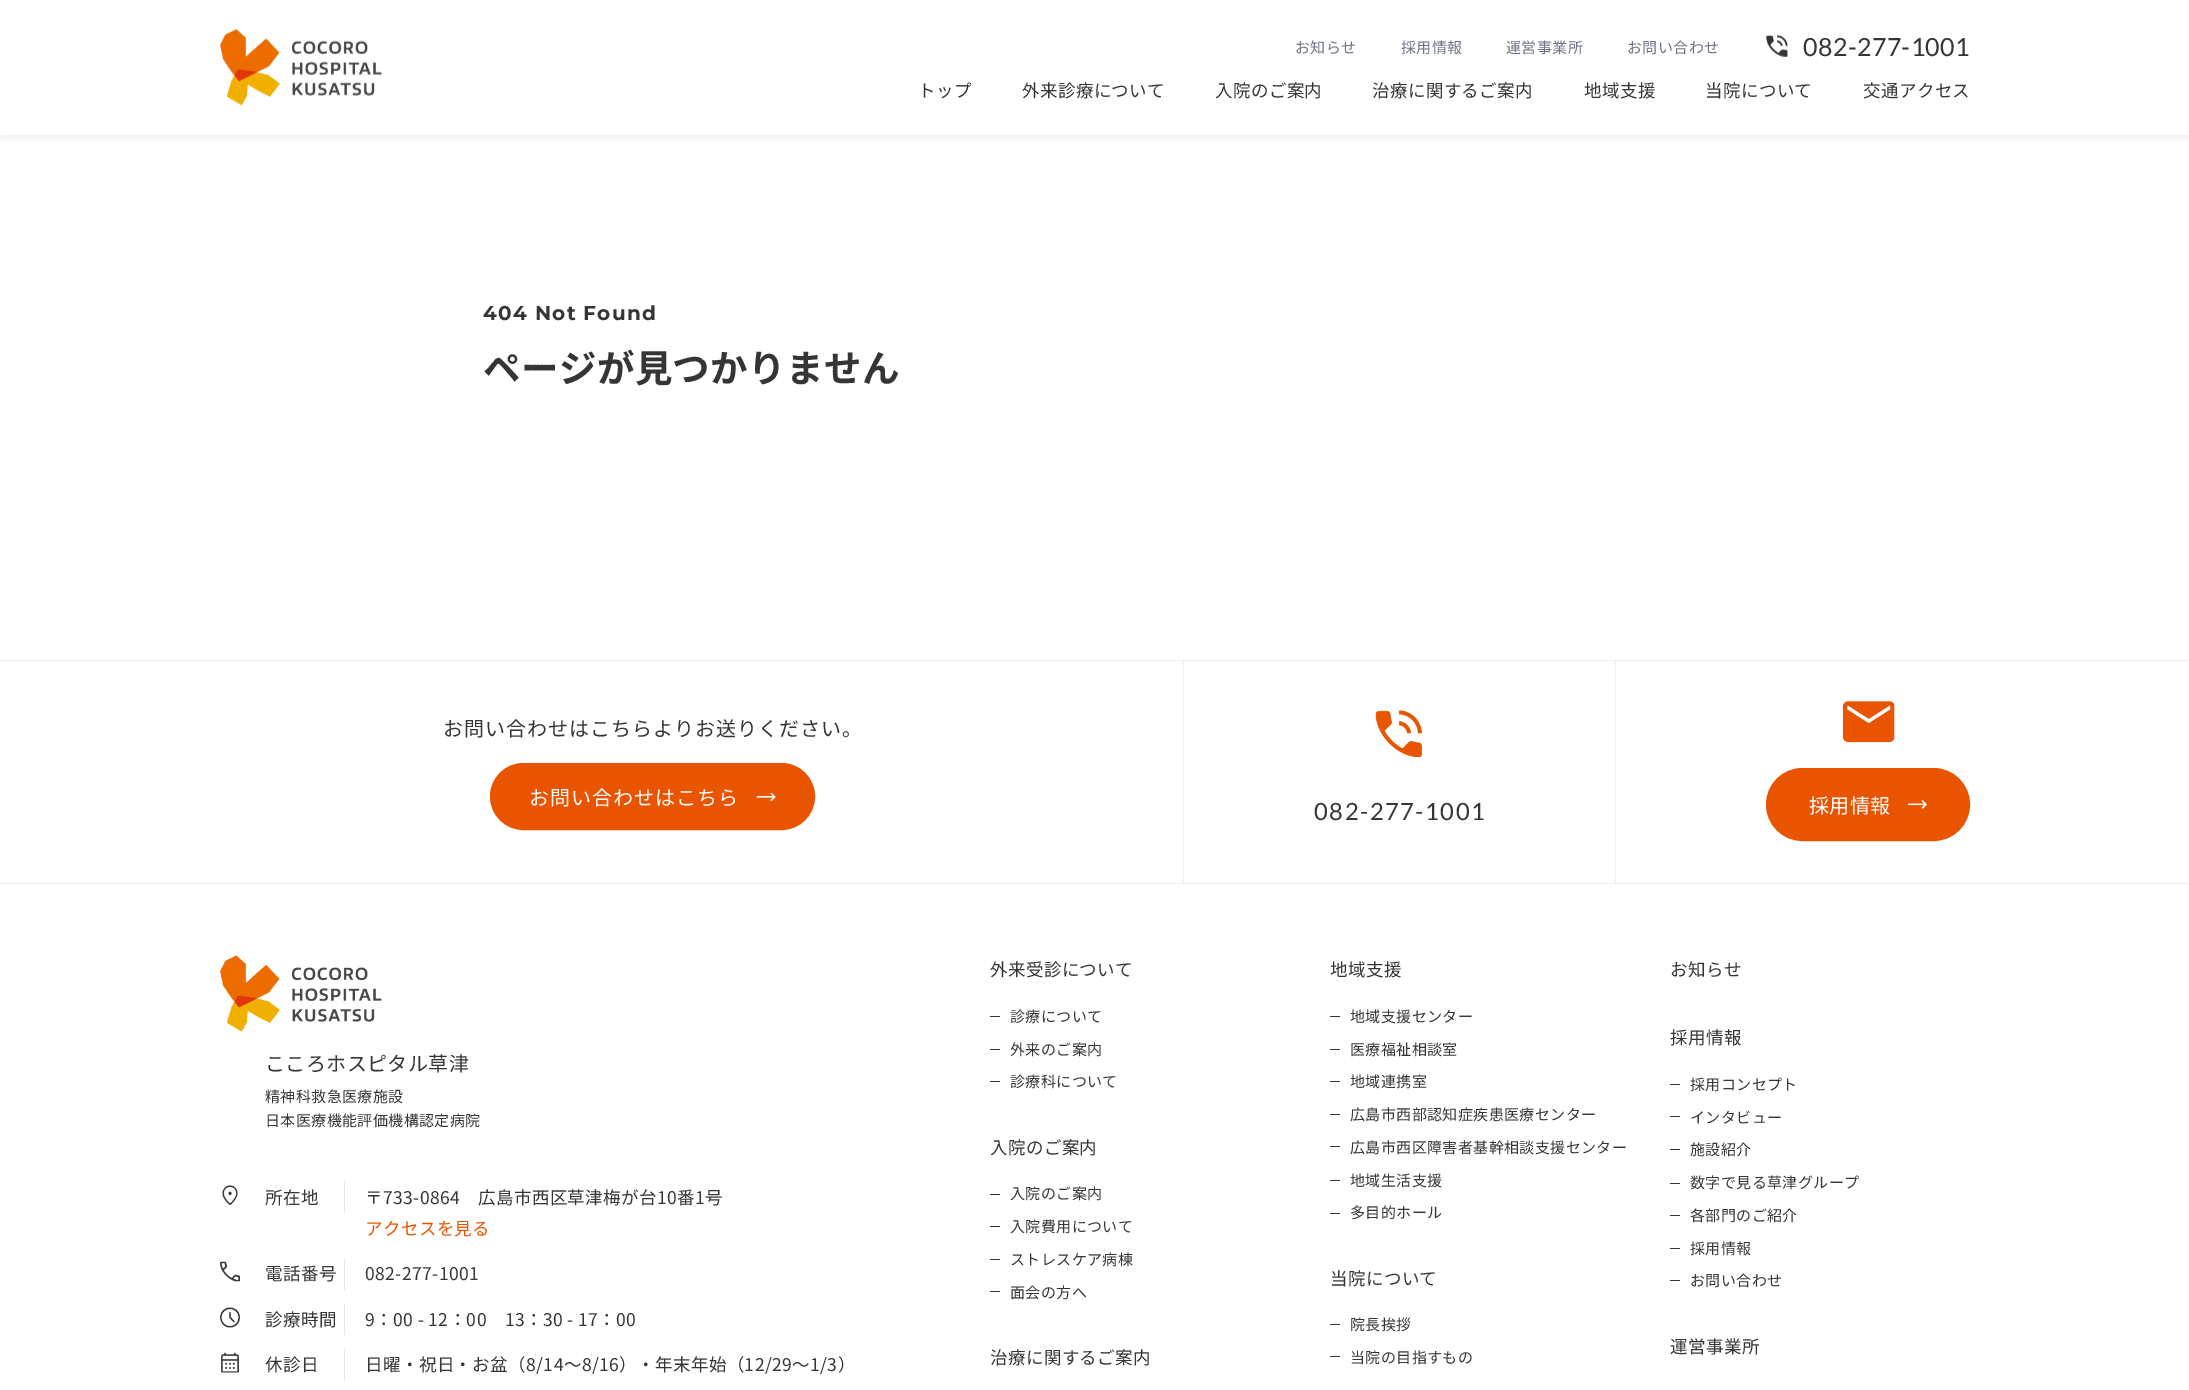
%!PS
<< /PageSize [2189 1390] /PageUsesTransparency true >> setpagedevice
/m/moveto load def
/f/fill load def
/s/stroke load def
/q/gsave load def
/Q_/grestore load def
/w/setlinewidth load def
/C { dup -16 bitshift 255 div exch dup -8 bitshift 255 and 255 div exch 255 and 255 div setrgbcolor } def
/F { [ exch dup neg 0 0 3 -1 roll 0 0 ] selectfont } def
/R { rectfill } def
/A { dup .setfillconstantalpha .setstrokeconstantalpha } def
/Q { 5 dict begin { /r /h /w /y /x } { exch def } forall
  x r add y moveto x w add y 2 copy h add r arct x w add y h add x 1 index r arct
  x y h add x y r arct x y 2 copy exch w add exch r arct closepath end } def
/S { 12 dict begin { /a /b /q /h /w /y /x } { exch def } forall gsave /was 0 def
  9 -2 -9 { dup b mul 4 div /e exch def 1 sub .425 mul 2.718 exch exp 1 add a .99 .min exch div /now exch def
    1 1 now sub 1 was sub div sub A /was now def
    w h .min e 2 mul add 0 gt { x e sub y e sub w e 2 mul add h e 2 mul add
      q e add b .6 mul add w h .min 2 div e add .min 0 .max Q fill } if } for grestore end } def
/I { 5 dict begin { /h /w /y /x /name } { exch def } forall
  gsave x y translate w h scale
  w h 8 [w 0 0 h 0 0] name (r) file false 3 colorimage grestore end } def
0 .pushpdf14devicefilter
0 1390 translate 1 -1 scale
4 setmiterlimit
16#FFFFFF C
0 0 2189 1390 R
q
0 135 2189 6 rectclip
16#000000 C
0 5 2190 135 0 5 .05 S
Q_
(1.rgb) 220 29 162 77 I
/NotoSansJP-Regular 15 F
16#6D7283 C
1295 53 m .4 0 (お知らせ) ashow
1401 53 m .4 0 (採用情報) ashow
1506 53 m .4 0 (運営事業所) ashow
1627 53 m .4 0 (お問い合わせ) ashow
(2.rgb) 1766 34 22 23 I
/Lato-Regular 25 F
16#353537 C
1803 56 m .4 0 (082-277-1001) ashow
/NotoSansJP-Regular 17.5 F
918 97 m .4 0 (トップ) ashow
1022 97 m .4 0 (外来診療について) ashow
1215 97 m .4 0 (入院のご案内) ashow
1372 97 m .4 0 (治療に関するご案内) ashow
1584 97 m .4 0 (地域支援) ashow
1705 97 m .4 0 (当院について) ashow
1863 97 m .4 0 (交通アクセス) ashow
/Montserrat-Bold 20 F
483 320 m 1.25 0 (404 Not Found) ashow
/NotoSansJP-Bold 37.5 F
483 382 m .4 0 (ページが見つかりません) ashow
16#ECEEEF C
1183 660 1 223 R
1615 660 1 223 R
0 660 2189 1 R
/NotoSansJP-Regular 20 F
16#353537 C
443 736 m 1 0 (お問い合わせはこちらよりお送りください。) ashow
16#E85400 C
491.5 764.5 322 64 32 Q q f Q_
3 w
s
16#FFFFFF C
529 805 m 1 0 (お問い合わせはこちら) ashow
(3.rgb) 756 793 20 8 I
(4.rgb) 1375 710 47 47 I
/Lato-Regular 23.75 F
16#353537 C
1314 820 m 1.5 0 (082-277-1001) ashow
(5.rgb) 1842 701 53 42 I
16#E85400 C
1767.5 769.5 201 70 35 Q q f Q_
s
/NotoSansJP-Regular 20 F
16#FFFFFF C
1809 813 m .4 0 (採用情報) ashow
(6.rgb) 1908 800 19 9 I
16#ECEEEF C
0 883 2189 1 R
(7.rgb) 220 955 162 77 I
16#353537 C
265 1071 m .4 0 (こころホスピタル草津) ashow
/NotoSansJP-Regular 15 F
265 1102 m .4 0 (精神科救急医療施設) ashow
265 1126 m .4 0 (日本医療機能評価機構認定病院) ashow
16#E4E7EC C
344 1181 1 32 R
(8.rgb) 222 1185 16 20 I
/NotoSansJP-Regular 17.5 F
16#353537 C
265 1204 m .4 0 (所在地) ashow
365 1204 m .4 0 (〒733-0864) ashow
478 1204 m .4 0 (広島市西区草津梅が台10番1号) ashow
16#E85400 C
365 1235 m .4 0 (アクセスを見る) ashow
16#E4E7EC C
344 1258 1 32 R
(9.rgb) 220 1261 20 21 I
16#353537 C
265 1280 m .4 0 (電話番号) ashow
365 1280 m .4 0 (082-277-1001) ashow
16#E4E7EC C
344 1304 1 31 R
(10.rgb) 220 1307 20 21 I
16#353537 C
265 1326 m .4 0 (診療時間) ashow
365 1326 m .4 0 (9：00 - 12：00　13：30 - 17：00) ashow
16#E4E7EC C
344 1349 1 31 R
(11.rgb) 221 1352 18 21 I
16#353537 C
265 1371 m .4 0 (休診日) ashow
365 1371 m .4 0 (日曜・祝日・お盆（8/14～8/16）・年末年始（12/29～1/3）) ashow
990 976 m .4 0 (外来受診について) ashow
990 1016 10 1 R
/NotoSansJP-Regular 15 F
1010 1022 m .4 0 (診療について) ashow
990 1049 10 1 R
1010 1055 m .4 0 (外来のご案内) ashow
990 1081 10 1 R
1010 1087 m .4 0 (診療科について) ashow
/NotoSansJP-Regular 17.5 F
990 1154 m .4 0 (入院のご案内) ashow
990 1194 10 1 R
/NotoSansJP-Regular 15 F
1010 1199 m .4 0 (入院のご案内) ashow
990 1226 10 1 R
1010 1232 m .4 0 (入院費用について) ashow
990 1259 10 1 R
1010 1265 m .4 0 (ストレスケア病棟) ashow
990 1291 10 1 R
1010 1298 m .4 0 (面会の方へ) ashow
/NotoSansJP-Regular 17.5 F
990 1364 m .4 0 (治療に関するご案内) ashow
1330 976 m .4 0 (地域支援) ashow
1330 1016 10 1 R
/NotoSansJP-Regular 15 F
1350 1022 m .4 0 (地域支援センター) ashow
1330 1049 10 1 R
1350 1055 m .4 0 (医療福祉相談室) ashow
1330 1081 10 1 R
1350 1087 m .4 0 (地域連携室) ashow
1330 1114 10 1 R
1350 1120 m .4 0 (広島市西部認知症疾患医療センター) ashow
1330 1146 10 1 R
1350 1153 m .4 0 (広島市西区障害者基幹相談支援センター) ashow
1330 1180 10 1 R
1350 1186 m .4 0 (地域生活支援) ashow
1330 1213 10 1 R
1350 1218 m .4 0 (多目的ホール) ashow
/NotoSansJP-Regular 17.5 F
1330 1285 m .4 0 (当院について) ashow
1330 1324 10 1 R
/NotoSansJP-Regular 15 F
1350 1330 m .4 0 (院長挨拶) ashow
1330 1356 10 1 R
1350 1363 m .4 0 (当院の目指すもの) ashow
/NotoSansJP-Regular 17.5 F
1670 976 m .4 0 (お知らせ) ashow
1670 1044 m .4 0 (採用情報) ashow
1670 1084 10 1 R
/NotoSansJP-Regular 15 F
1690 1090 m .4 0 (採用コンセプト) ashow
1670 1116 10 1 R
1690 1123 m .4 0 (インタビュー) ashow
1670 1149 10 1 R
1690 1155 m .4 0 (施設紹介) ashow
1670 1183 10 1 R
1690 1188 m .4 0 (数字で見る草津グループ) ashow
1670 1215 10 1 R
1690 1221 m .4 0 (各部門のご紹介) ashow
1670 1248 10 1 R
1690 1254 m .4 0 (採用情報) ashow
1670 1280 10 1 R
1690 1286 m .4 0 (お問い合わせ) ashow
/NotoSansJP-Regular 17.5 F
1670 1353 m .4 0 (運営事業所) ashow
.poppdf14devicefilter showpage
